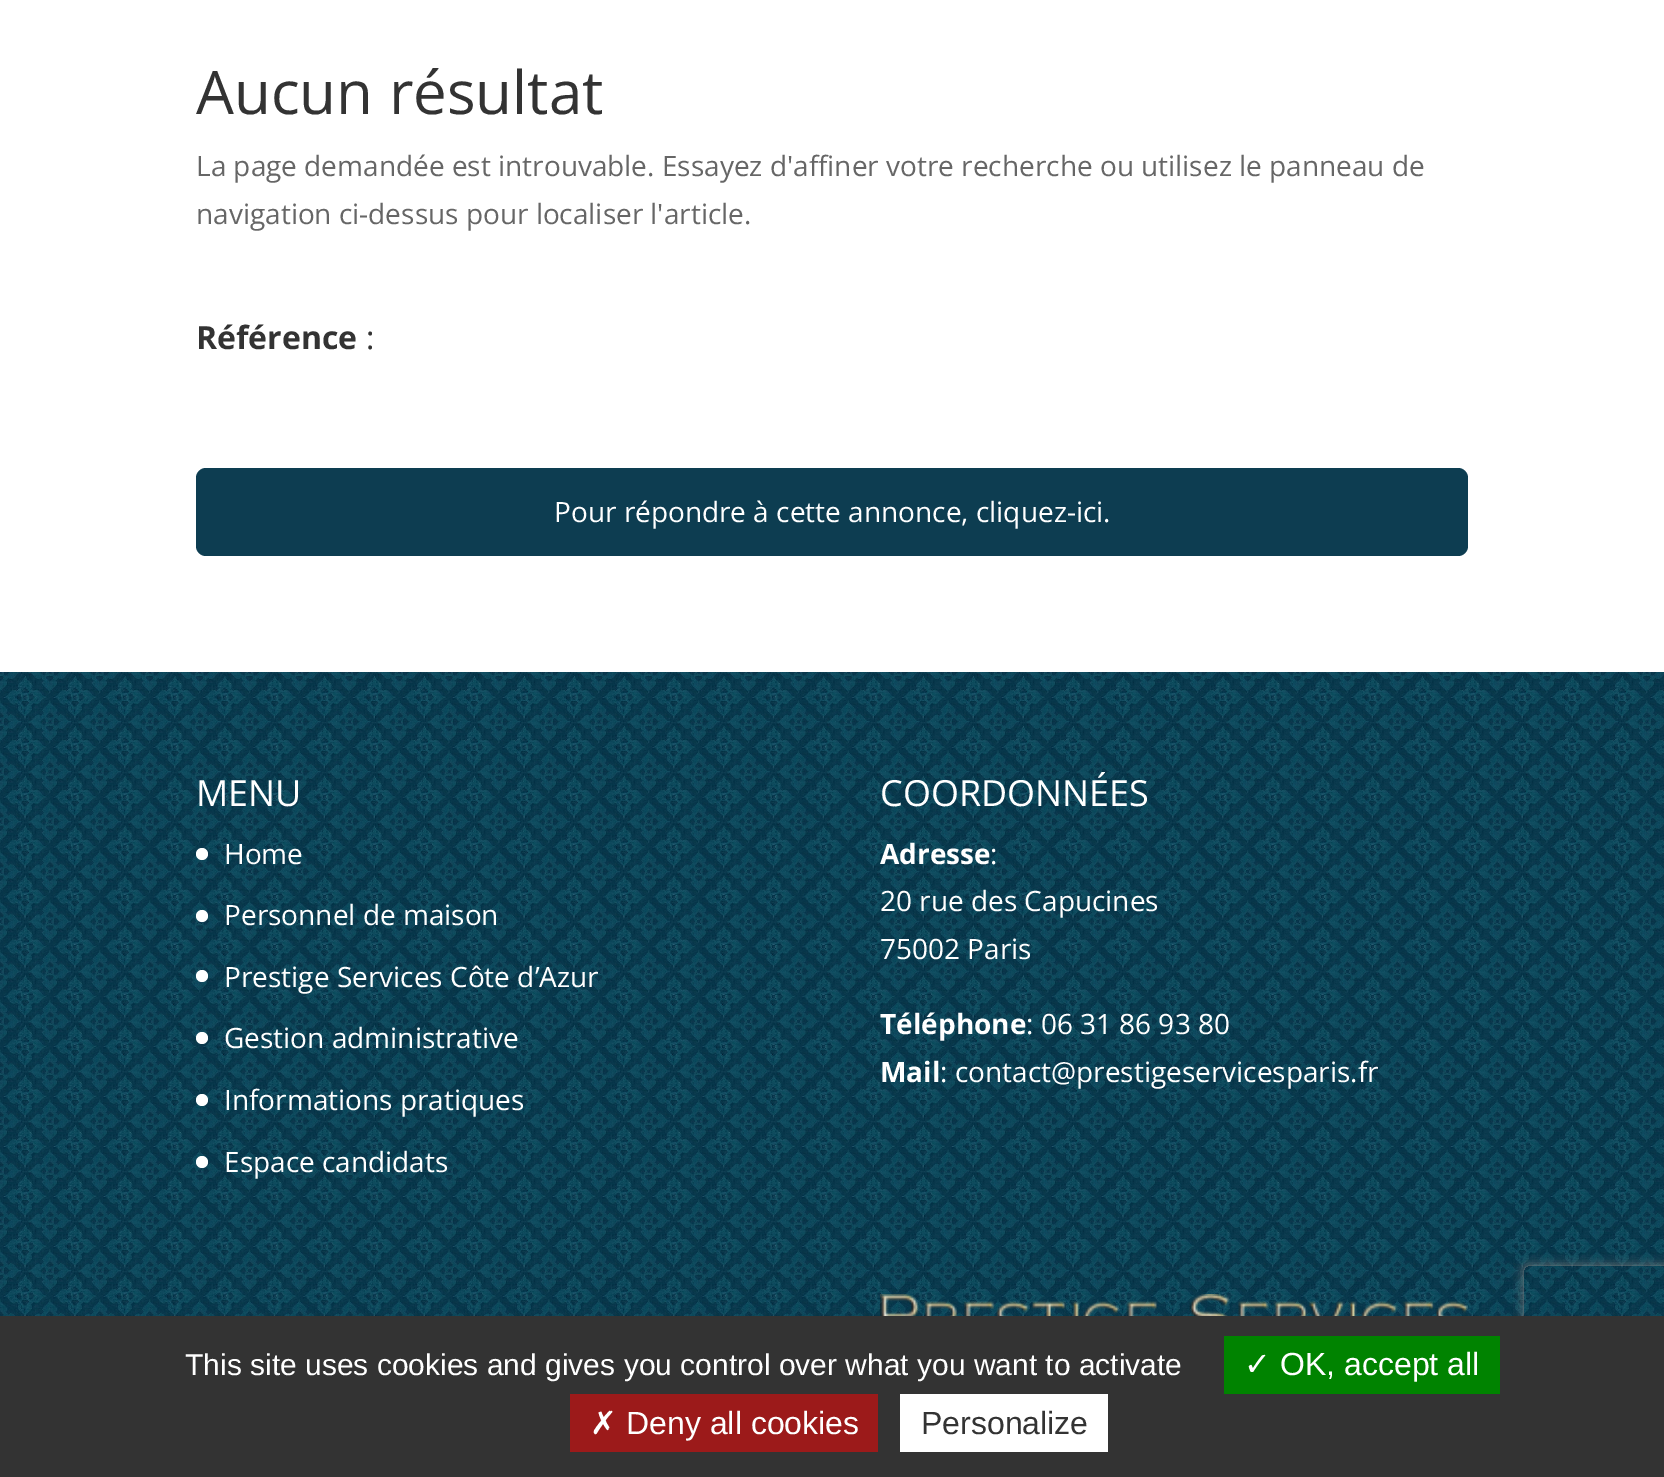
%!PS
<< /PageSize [1664 1477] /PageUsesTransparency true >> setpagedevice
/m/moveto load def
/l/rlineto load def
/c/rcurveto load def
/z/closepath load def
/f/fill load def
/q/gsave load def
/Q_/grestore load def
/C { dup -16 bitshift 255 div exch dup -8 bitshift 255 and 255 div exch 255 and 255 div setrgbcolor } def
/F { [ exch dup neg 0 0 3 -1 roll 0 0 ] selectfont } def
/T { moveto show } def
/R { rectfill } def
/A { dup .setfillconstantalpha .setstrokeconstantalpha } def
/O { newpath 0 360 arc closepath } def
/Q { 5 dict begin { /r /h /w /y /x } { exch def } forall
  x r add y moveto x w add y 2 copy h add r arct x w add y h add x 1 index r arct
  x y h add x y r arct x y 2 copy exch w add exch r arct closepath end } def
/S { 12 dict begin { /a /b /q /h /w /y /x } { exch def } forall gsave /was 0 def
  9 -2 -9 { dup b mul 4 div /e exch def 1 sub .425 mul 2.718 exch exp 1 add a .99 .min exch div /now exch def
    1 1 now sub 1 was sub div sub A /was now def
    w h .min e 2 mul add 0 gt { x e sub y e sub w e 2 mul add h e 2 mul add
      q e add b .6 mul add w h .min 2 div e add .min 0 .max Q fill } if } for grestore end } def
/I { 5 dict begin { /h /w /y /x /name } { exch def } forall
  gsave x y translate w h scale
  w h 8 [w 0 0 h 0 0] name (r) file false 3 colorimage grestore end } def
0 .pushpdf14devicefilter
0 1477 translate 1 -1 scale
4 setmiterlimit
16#FFFFFF C
0 0 1664 1477 R
/OpenSans-Regular 60 F
16#333333 C
(Aucun résultat) 196 114 T
/OpenSans-Regular 28 F
16#666666 C
(La page demandée est introuvable. Essayez d'affiner votre recherche ou utilisez le panneau de) 196 176 T
(navigation ci-dessus pour localiser l'article.) 196 224 T
/OpenSans-Bold 32 F
16#333333 C
(Référence) 196 349 T
/OpenSans-Regular 32 F
(:) 366 349 T
16#0D3D51 C
196 468 1272 88 10 Q f
/OpenSans-Regular 28 F
16#FFFFFF C
(Pour répondre à cette annonce, cliquez-ici.) 554 522 T
(1.rgb) 0 672 1664 644 I
/OpenSans-Regular 36 F
(MENU) 196 806 T
202 854 6 O f
/OpenSans-Regular 28 F
(Home) 224 864 T
202 916 6 O f
(Personnel de maison) 224 925 T
202 976 6 O f
(Prestige Services Côte d’Azur) 224 987 T
202 1038 6 O f
(Gestion administrative) 224 1048 T
202 1100 6 O f
(Informations pratiques) 224 1110 T
202 1162 6 O f
(Espace candidats) 224 1172 T
/OpenSans-Regular 36 F
(COORDONNÉES) 880 806 T
/OpenSans-Bold 28 F
(Adresse) 880 864 T
/OpenSans-Regular 28 F
(:) 990 864 T
(20 rue des Capucines) 880 911 T
(75002 Paris) 880 959 T
/OpenSans-Bold 28 F
(Téléphone) 880 1034 T
/OpenSans-Regular 28 F
(: 06 31 86 93 80) 1026 1034 T
/OpenSans-Bold 28 F
(Mail) 880 1082 T
/OpenSans-Regular 28 F
(: contact@prestigeservicesparis.fr) 940 1082 T
(2.rgb) 880 1294 588 22 I
q
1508 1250 m 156 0 l 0 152 l -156 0 l z 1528 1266 m 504 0 l 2 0 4 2 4 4 c 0 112 l 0 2 -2 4 -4 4 c -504 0 l -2 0 -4 -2 -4 -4 c 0 -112 l 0 -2 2 -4 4 -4 c z eoclip newpath
16#808080 C
1524 1266 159 120 4 5 1 S
Q_
16#333333 C
0 1316 1664 161 R
/LiberationSans-Regular 30 F
16#FFFFFF C
(This site uses cookies and gives you control over what you want to activate) 185 1375 T
16#008300 C
1224 1336 276 58 R
/DejaVuSans-Regular 32 F
16#FFFFFF C
(✓) 1244 1375 T
/LiberationSans-Regular 32 F
(OK, accept all) 1280 1375 T
16#9C1A1A C
570 1394 308 58 R
/DejaVuSans-Regular 32 F
16#FFFFFF C
(✗) 590 1434 T
/LiberationSans-Regular 32 F
(Deny all cookies) 626 1434 T
900 1394 208 58 R
16#333333 C
(Personalize) 921 1434 T
.poppdf14devicefilter showpage
